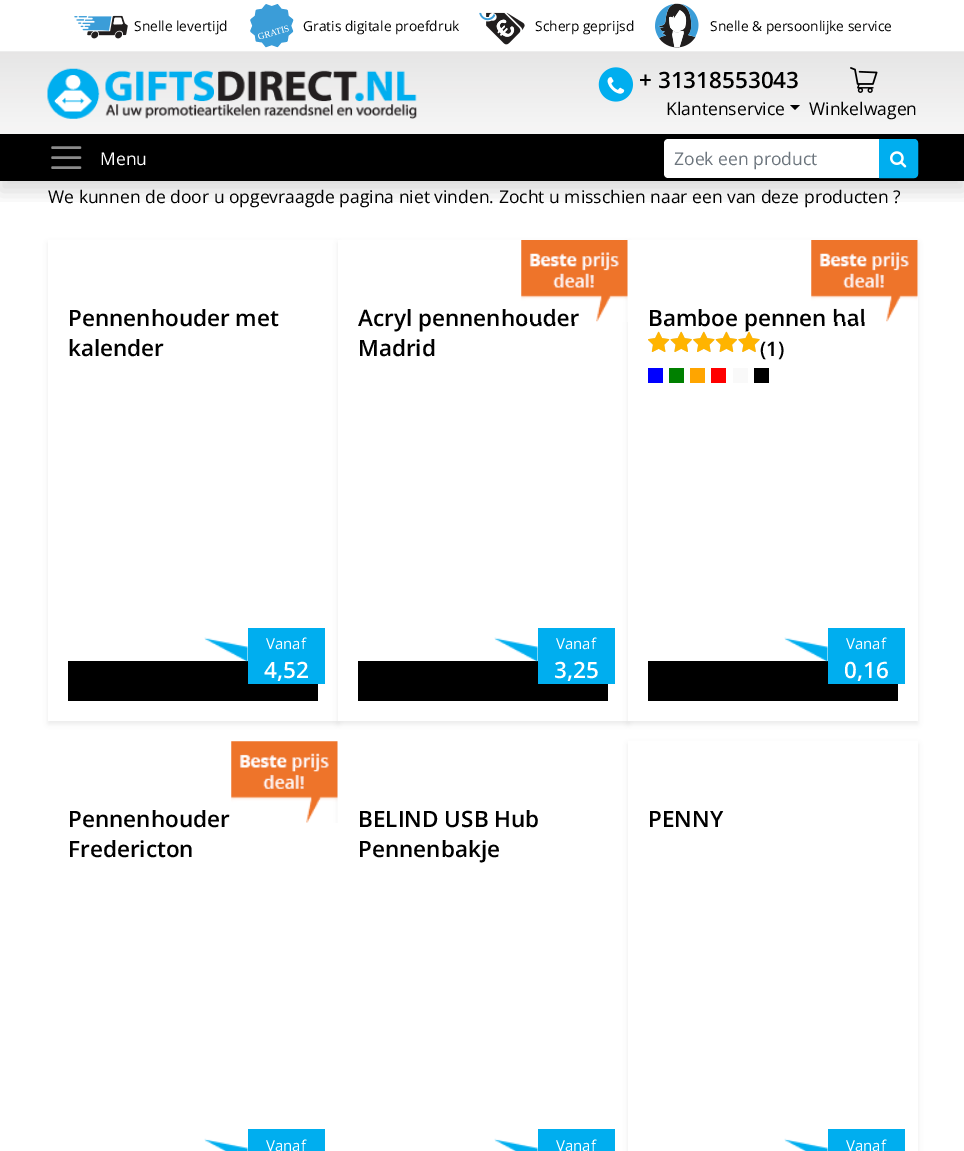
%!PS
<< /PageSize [964 1151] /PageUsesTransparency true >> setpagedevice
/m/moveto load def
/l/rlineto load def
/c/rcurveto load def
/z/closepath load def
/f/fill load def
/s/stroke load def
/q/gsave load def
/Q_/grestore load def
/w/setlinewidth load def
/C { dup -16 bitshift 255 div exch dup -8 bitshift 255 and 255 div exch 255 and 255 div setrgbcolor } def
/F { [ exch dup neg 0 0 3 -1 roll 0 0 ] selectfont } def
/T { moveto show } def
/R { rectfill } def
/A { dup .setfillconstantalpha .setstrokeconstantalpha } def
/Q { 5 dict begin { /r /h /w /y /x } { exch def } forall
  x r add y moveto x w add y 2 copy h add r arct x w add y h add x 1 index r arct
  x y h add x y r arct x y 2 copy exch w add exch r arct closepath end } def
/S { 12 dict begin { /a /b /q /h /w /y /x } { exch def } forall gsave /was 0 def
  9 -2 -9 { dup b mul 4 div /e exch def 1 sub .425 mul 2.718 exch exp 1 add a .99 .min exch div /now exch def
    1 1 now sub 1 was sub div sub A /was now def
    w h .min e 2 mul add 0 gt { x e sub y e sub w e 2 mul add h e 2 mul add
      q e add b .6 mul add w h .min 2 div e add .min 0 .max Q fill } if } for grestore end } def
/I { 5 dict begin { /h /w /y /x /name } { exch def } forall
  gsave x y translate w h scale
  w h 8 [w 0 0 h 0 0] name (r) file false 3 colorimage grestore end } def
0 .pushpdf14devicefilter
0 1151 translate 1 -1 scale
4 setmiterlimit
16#FFFFFF C
0 0 964 1151 R
(1.rgb) 0 51 964 83 I
q
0 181 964 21 rectclip
16#000000 C
0 10 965 181 0 10 .15 S
Q_
(2.rgb) 74 15 54 24 I
/OpenSans-Regular 13.75 F
16#000000 C
(Snelle levertijd) 134 31 T
(3.rgb) 250 4 44 44 I
(Gratis digitale proefdruk) 303 31 T
(4.rgb) 479 12 46 33 I
(Scherp geprijsd) 535 31 T
(5.rgb) 655 3 44 45 I
(Snelle & persoonlijke service) 710 31 T
(6.rgb) 47 68 370 51 I
(7.rgb) 598 67 36 35 I
(8.rgb) 607 77 18 17 I
/OpenSans-SemiBold 22.5 F
(+ 31318553043) 639 88 T
/OpenSans-Regular 17.5 F
(Klantenservice) 666 115 T
790 105 m 10 0 l -5 5 l z f
(9.rgb) 850 67 28 26 I
(Winkelwagen) 809 115 T
0 134 964 47 R
16#8C8C8C C
2.5 w
1 setlinecap
52.5 147.5 m 27.5 0 l 52.5 157.5 m 27.5 0 l 52.5 167.5 m 27.5 0 l s
16#FFFFFF C
(Menu) 100 165 T
668 139 m 212 0 l 0 39 l -212 0 l -2 0 -4 -2 -4 -4 c 0 -31 l 0 -2 2 -4 4 -4 c z f
16#6C757D C
(Zoek een product) 674 165 T
16#00AEEF C
879.5 139.5 m 34.5 0 l 2 0 3.5 1.5 3.5 3.5 c 0 31 l 0 2 -1.5 3.5 -3.5 3.5 c -34.5 0 l z q f Q_
1 w
0 setlinecap
s
(10.rgb) 890 151 17 17 I
16#000000 C
(We kunnen de door u opgevraagde pagina niet vinden. Zocht u misschien naar een van deze producten ?) 48 203 T
48 243 290 481 0 2.5 .07 S
16#FFFFFF C
48 240 290 481 R
/OpenSans-SemiBold 22.5 F
16#000000 C
(Pennenhouder met) 68 326 T
(kalender) 68 356 T
68 661 250 40 R
16#00AEEF C
248 628 77 56 R
(11.rgb) 204 637 44 25 I
/OpenSans-Regular 15 F
16#FFFFFF C
(Vanaf) 266 649 T
/OpenSans-SemiBold 22.5 F
(4,52) 264 678 T
16#000000 C
338 243 290 481 0 2.5 .07 S
16#FFFFFF C
338 240 290 481 R
16#000000 C
(Acryl pennenhouder) 358 326 T
628 243 290 481 0 2.5 .07 S
(12.rgb) 521 240 107 82 I
(Madrid) 358 356 T
358 661 250 40 R
16#00AEEF C
538 628 77 56 R
(11.rgb) 494 637 44 25 I
/OpenSans-Regular 15 F
16#FFFFFF C
(Vanaf) 556 649 T
/OpenSans-SemiBold 22.5 F
(3,25) 554 678 T
628 240 290 481 R
16#000000 C
(Bamboe pennen hal) 648 326 T
(13.rgb) 811 240 107 82 I
(14.rgb) 648 332 112 20 I
(15.rgb) 648 331 112 21 I
/OpenSans-SemiBold 20 F
(\(1\)) 760 356 T
16#0000FF C
648 368 15 15 R
16#008000 C
669 368 15 15 R
16#FFA500 C
690 368 15 15 R
16#FF0000 C
711 368 15 15 R
16#F9F9F9 C
733 368 15 15 R
16#000000 C
754 368 15 15 R
648 661 250 40 R
16#00AEEF C
828 628 77 56 R
(11.rgb) 784 637 44 25 I
/OpenSans-Regular 15 F
16#FFFFFF C
(Vanaf) 846 649 T
/OpenSans-SemiBold 22.5 F
(0,16) 844 678 T
(16.rgb) 231 741 107 82 I
16#000000 C
(Pennenhouder) 68 827 T
(Fredericton) 68 857 T
16#00AEEF C
248 1129 77 22 R
(17.rgb) 204 1138 44 13 I
/OpenSans-Regular 15 F
16#FFFFFF C
(Vanaf) 266 1151 T
/OpenSans-SemiBold 22.5 F
16#000000 C
(BELIND USB Hub) 358 827 T
(Pennenbakje) 358 857 T
16#00AEEF C
538 1129 77 22 R
(17.rgb) 494 1138 44 13 I
/OpenSans-Regular 15 F
16#FFFFFF C
(Vanaf) 556 1151 T
16#000000 C
628 744 290 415 0 2.5 .07 S
16#FFFFFF C
628 741 290 410 R
/OpenSans-SemiBold 22.5 F
16#000000 C
(PENNY) 648 827 T
16#00AEEF C
828 1129 77 22 R
(17.rgb) 784 1138 44 13 I
/OpenSans-Regular 15 F
16#FFFFFF C
(Vanaf) 846 1151 T
.poppdf14devicefilter showpage
